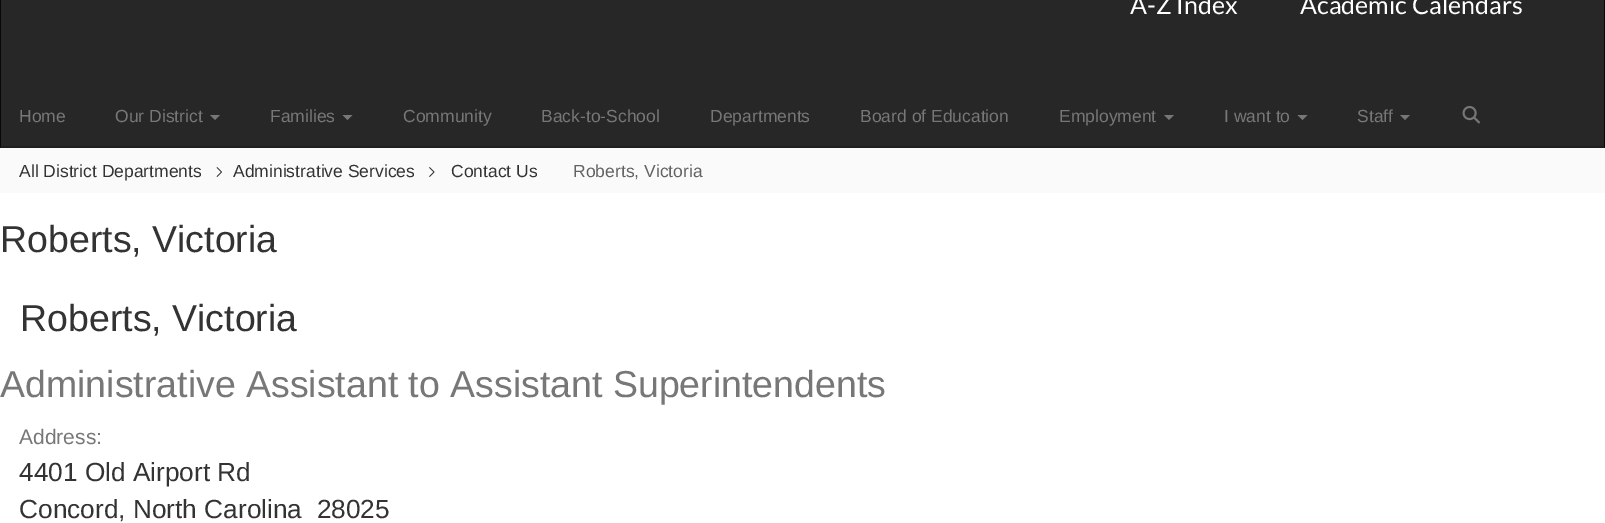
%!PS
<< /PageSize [1605 523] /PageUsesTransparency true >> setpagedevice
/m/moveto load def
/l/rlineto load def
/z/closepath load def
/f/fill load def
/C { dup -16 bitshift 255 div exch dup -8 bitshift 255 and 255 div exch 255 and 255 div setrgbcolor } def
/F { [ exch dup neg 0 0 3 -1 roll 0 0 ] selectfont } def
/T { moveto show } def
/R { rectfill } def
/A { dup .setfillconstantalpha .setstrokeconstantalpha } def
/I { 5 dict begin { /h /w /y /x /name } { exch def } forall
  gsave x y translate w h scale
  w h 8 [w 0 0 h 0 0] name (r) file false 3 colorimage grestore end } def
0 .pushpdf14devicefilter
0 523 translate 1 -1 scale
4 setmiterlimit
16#FFFFFF C
0 0 1605 523 R
16#272727 C
0 0 1605 148 R
16#080808 C
1605 -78 m 0 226 l -1 -2 l 0 -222 l z f
0.2 A
16#000000 C
1605 148 m -1605 0 l 1 -2 l 1603 0 l z f
1 A
16#080808 C
0 148 m 0 -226 l 1 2 l 0 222 l z f
/Lato-Regular 25 F
16#FFFFFF C
(A-Z Index) 1130 14 T
(Academic Calendars) 1300 14 T
/LiberationSans-Regular 17.5 F
16#777777 C
(Home) 19 122 T
(Our District) 115 122 T
210 115 m 10 0 l -5 5 l z f
(Families) 270 122 T
342.5 115 m 10 0 l -5 5 l z f
(Community) 403 122 T
(Back-to-School) 541 122 T
(Departments) 710 122 T
(Board of Education) 860 122 T
(Employment) 1059 122 T
1164 115 m 10 0 l -5 5 l z f
(I want to) 1224 122 T
1297.5 115 m 10 0 l -5 5 l z f
(Staff) 1357 122 T
1400 115 m 10 0 l -5 5 l z f
(1.rgb) 1462 106 18 18 I
16#FAFAFA C
0 148 1605 45 R
16#333333 C
(All District Departments) 19 177 T
(2.rgb) 216 167 6 10 I
(Administrative Services) 233 177 T
(3.rgb) 429 167 6 10 I
(Contact Us) 451 177 T
16#636363 C
(Roberts, Victoria) 573 177 T
/LiberationSans-Regular 37.5 F
16#333333 C
(Roberts, Victoria) 0 252 T
(Roberts, Victoria) 20 331 T
16#777777 C
(Administrative Assistant to Assistant Superintendents) 0 397 T
/LiberationSans-Regular 21 F
(Address:) 19 444 T
/LiberationSans-Regular 26.25 F
16#333333 C
(4401 Old Airport Rd) 19 481 T
(Concord, North Carolina  28025) 19 518 T
.poppdf14devicefilter showpage
